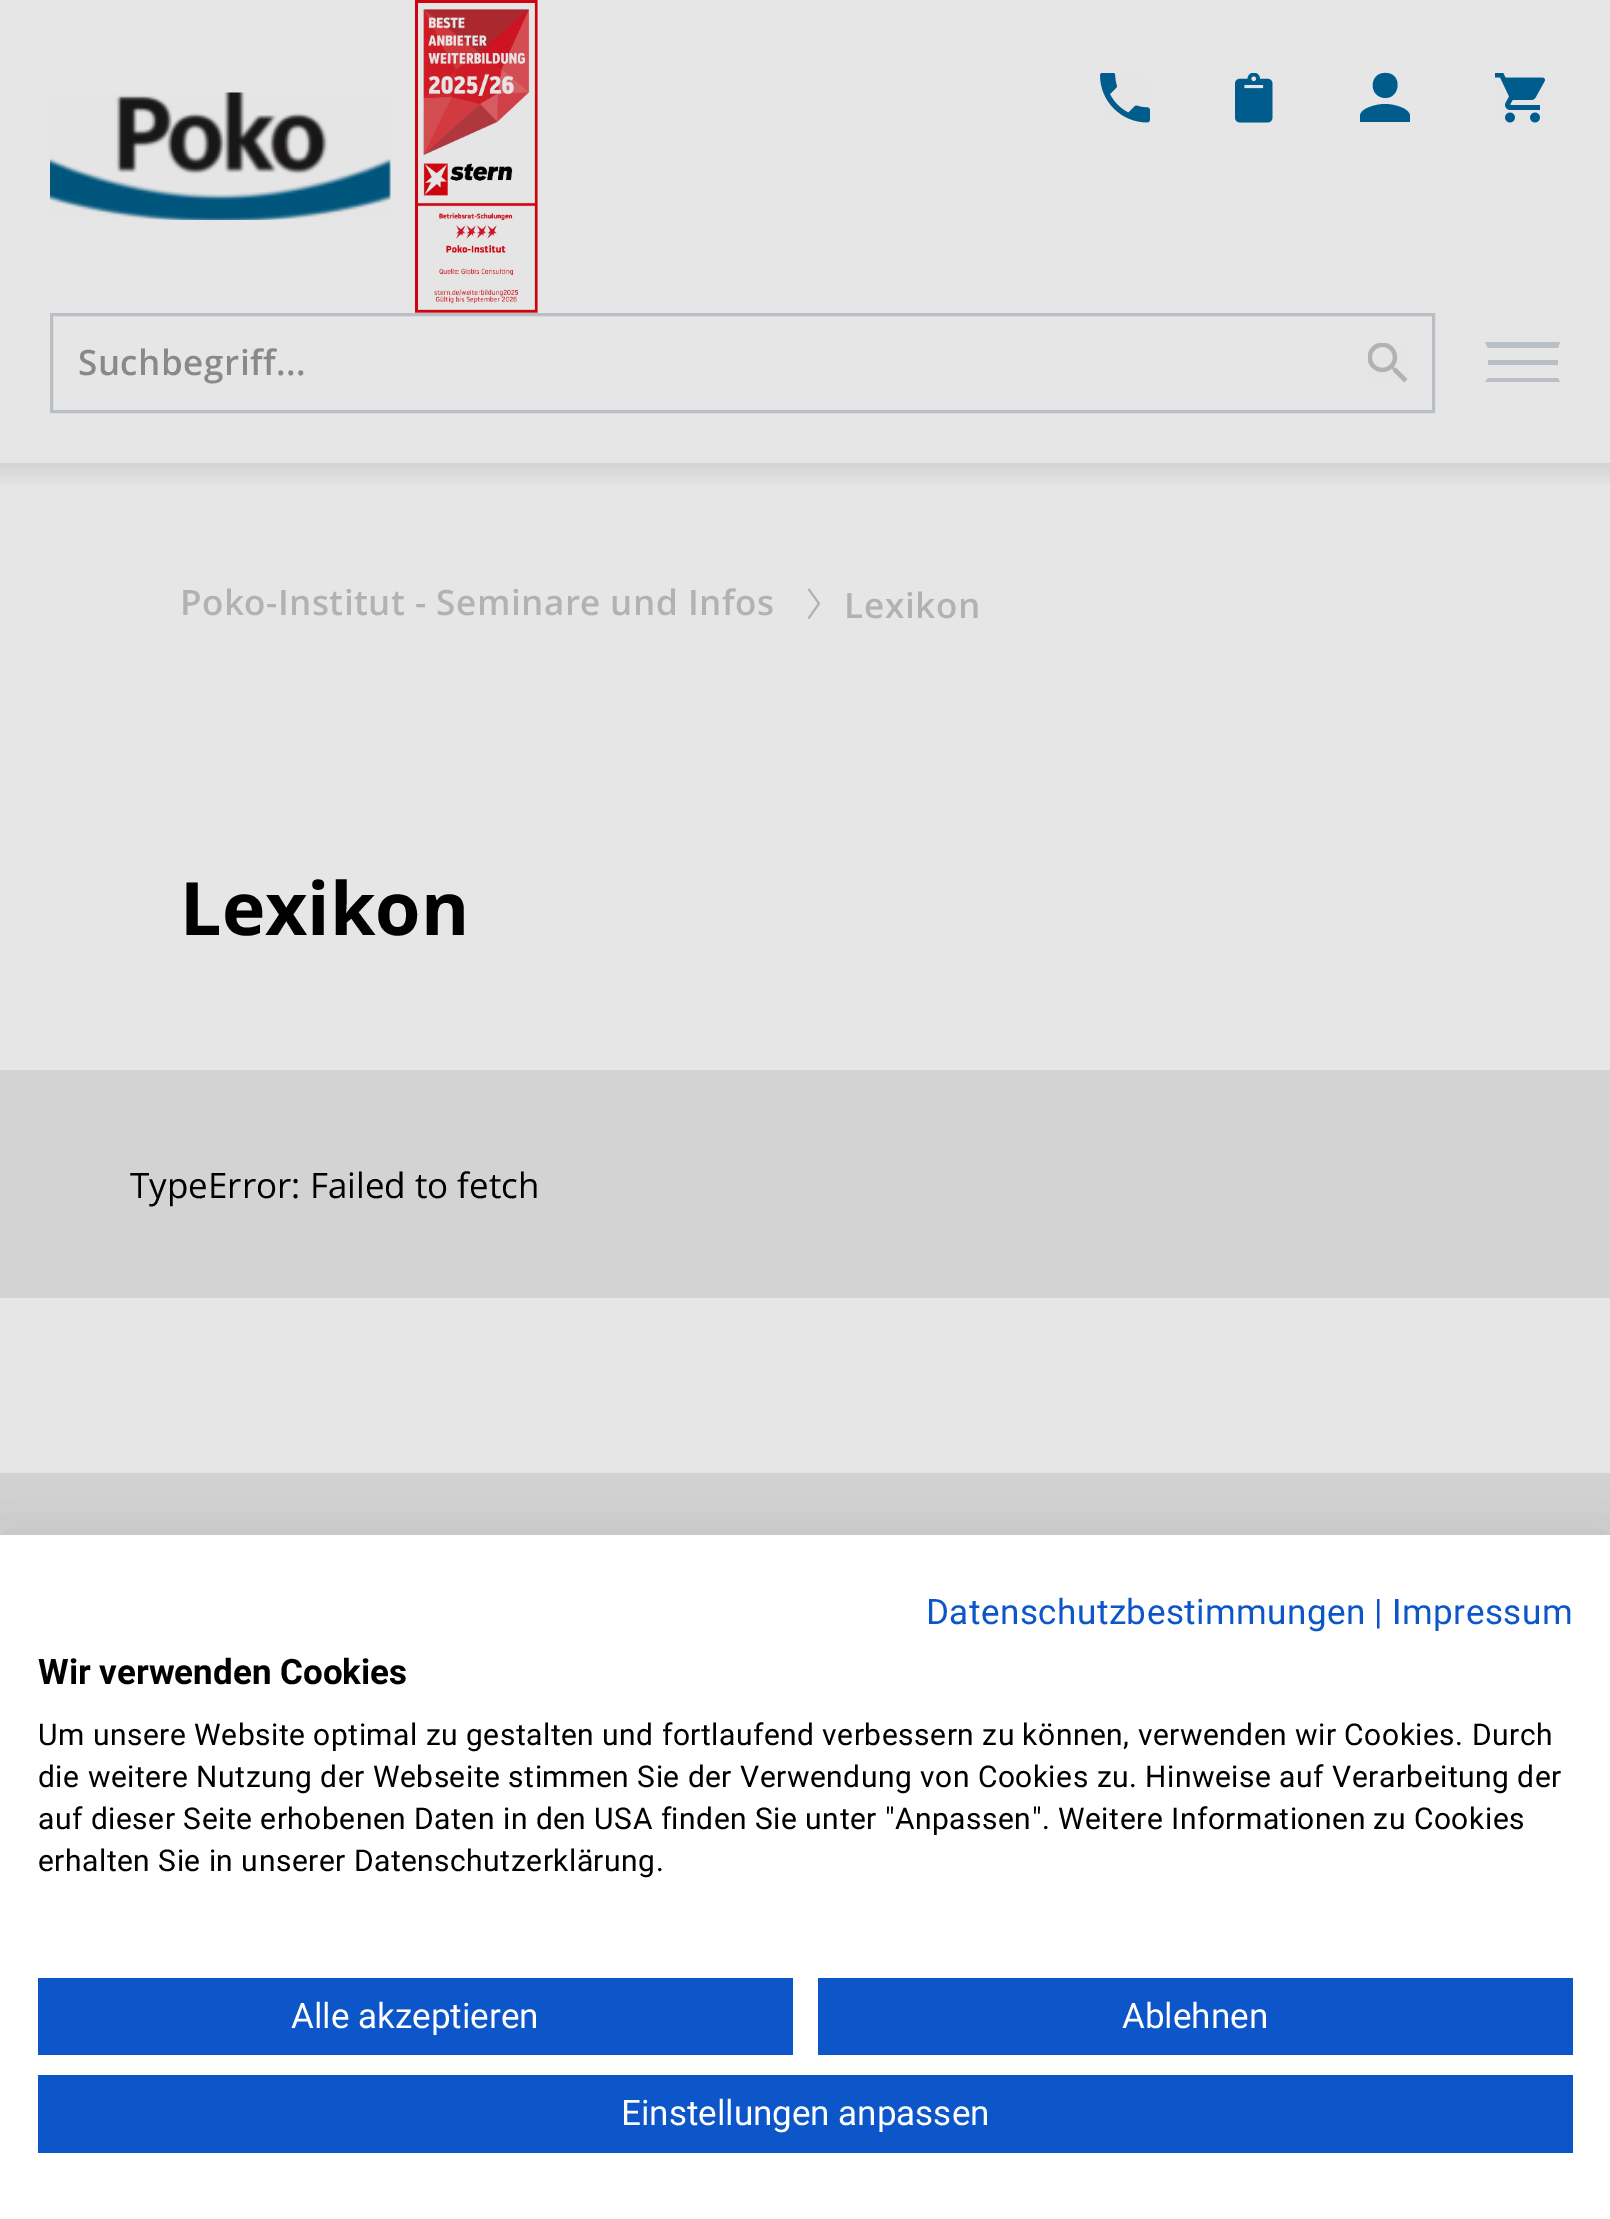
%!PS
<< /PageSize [1610 2219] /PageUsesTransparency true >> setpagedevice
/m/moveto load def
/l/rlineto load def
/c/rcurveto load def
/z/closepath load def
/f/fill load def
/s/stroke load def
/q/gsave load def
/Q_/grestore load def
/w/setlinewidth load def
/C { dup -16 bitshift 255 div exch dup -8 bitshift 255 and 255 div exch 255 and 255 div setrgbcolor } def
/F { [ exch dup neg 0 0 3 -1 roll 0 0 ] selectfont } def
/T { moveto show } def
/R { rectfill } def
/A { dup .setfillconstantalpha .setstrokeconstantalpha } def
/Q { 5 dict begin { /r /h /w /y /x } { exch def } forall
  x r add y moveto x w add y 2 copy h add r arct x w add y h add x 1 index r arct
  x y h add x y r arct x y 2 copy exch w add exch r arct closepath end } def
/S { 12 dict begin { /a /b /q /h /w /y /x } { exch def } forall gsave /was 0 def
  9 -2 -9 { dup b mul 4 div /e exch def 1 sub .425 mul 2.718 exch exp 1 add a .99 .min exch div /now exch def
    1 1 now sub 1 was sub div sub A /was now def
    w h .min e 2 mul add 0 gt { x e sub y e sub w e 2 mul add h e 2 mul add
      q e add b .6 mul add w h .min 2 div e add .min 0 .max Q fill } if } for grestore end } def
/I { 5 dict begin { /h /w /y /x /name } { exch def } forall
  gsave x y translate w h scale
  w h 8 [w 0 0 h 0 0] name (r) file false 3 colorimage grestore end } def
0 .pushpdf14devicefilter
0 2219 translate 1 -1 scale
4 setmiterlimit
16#E6E6E6 C
0 0 1610 2219 R
(1.rgb) 50 92 341 128 I
(2.rgb) 415 0 123 313 I
(3.rgb) 1100 73 50 50 I
(4.rgb) 1235 73 38 50 I
16#005C8D C
1385 98 m 16 0 17 -25 1 -25 c -17 -1 -18 24 -1 25 c z 1385 104 m -8 0 -25 4 -25 12 c 0 6 l 50 0 l 0 -6 l 0 -8 -17 -12 -25 -12 c z f
(5.rgb) 1495 73 50 50 I
(6.rgb) 1368 343 40 40 I
16#B9BFC4 C
3 w
51.5 314.5 1382 97 rectstroke
/OpenSans-SemiBold 35 F
16#898989 C
78 375 m .5 0 (Suchbegriff...) ashow
16#B9BFC4 C
1485 342 m 75 0 l -2 6 l -70 0 l z f
1560 382 m -75 0 l 3 -4 l 70 0 l z f
1488 360 70 5 R
q 0 463 m 1610 0 l 0 22 l -1610 0 l z clip newpath
<< /ShadingType 2 /ColorSpace /DeviceRGB /Coords [805 462 805 488] /Extend [true true] /Function << /FunctionType 2 /Domain [0 1] /C0 [.827 .827 .827] /C1 [.902 .902 .902] /N 1 >> >> shfill Q_
16#B2B2B2 C
180 615 m .5 0 (Poko-Institut - Seminare und Infos) ashow
q
808 588 12 32 rectclip
2 w
808.5 589 m 10.5 14.5 l -10.5 15 l s
Q_
844 618 m .75 0 (Lexikon) ashow
/OpenSans-Bold 73.5 F
16#000000 C
(Lexikon) 180 935 T
16#D3D3D3 C
0 1070 1610 228 R
/OpenSans-Regular 35 F
16#000000 C
(TypeError: Failed to fetch) 130 1198 T
16#D3D3D3 C
0 1473 1610 62 R
16#000000 C
0 1535 1610 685 0 30 .1 S
16#FFFFFF C
0 1535 1610 684 R
/Roboto-Regular 35 F
16#0D56C9 C
926 1624 m .5 0 (Datenschutzbestimmungen) ashow
(|) 1374 1624 T
1392 1624 m .5 0 (Impressum) ashow
/Roboto-Bold 35 F
16#000000 C
(Wir verwenden Cookies) 38 1684 T
/Roboto-Regular 30 F
38 1745 m .5 0 (Um unsere Website optimal zu gestalten und fortlaufend verbessern zu können, verwenden wir Cookies. Durch) ashow
38 1787 m .5 0 (die weitere Nutzung der Webseite stimmen Sie der Verwendung von Cookies zu. Hinweise auf Verarbeitung der) ashow
38 1829 m .5 0 (auf dieser Seite erhobenen Daten in den USA finden Sie unter "Anpassen". Weitere Informationen zu Cookies) ashow
38 1871 m .5 0 (erhalten Sie in unserer Datenschutzerklärung.) ashow
16#0D56C9 C
38 1978 755 77 R
/Roboto-Regular 35 F
16#FFFFFF C
(Alle akzeptieren) 291 2028 T
16#0D56C9 C
818 1978 755 77 R
16#FFFFFF C
(Ablehnen) 1122 2028 T
16#0D56C9 C
38 2075 1535 78 R
16#FFFFFF C
(Einstellungen anpassen) 621 2125 T
.poppdf14devicefilter showpage
